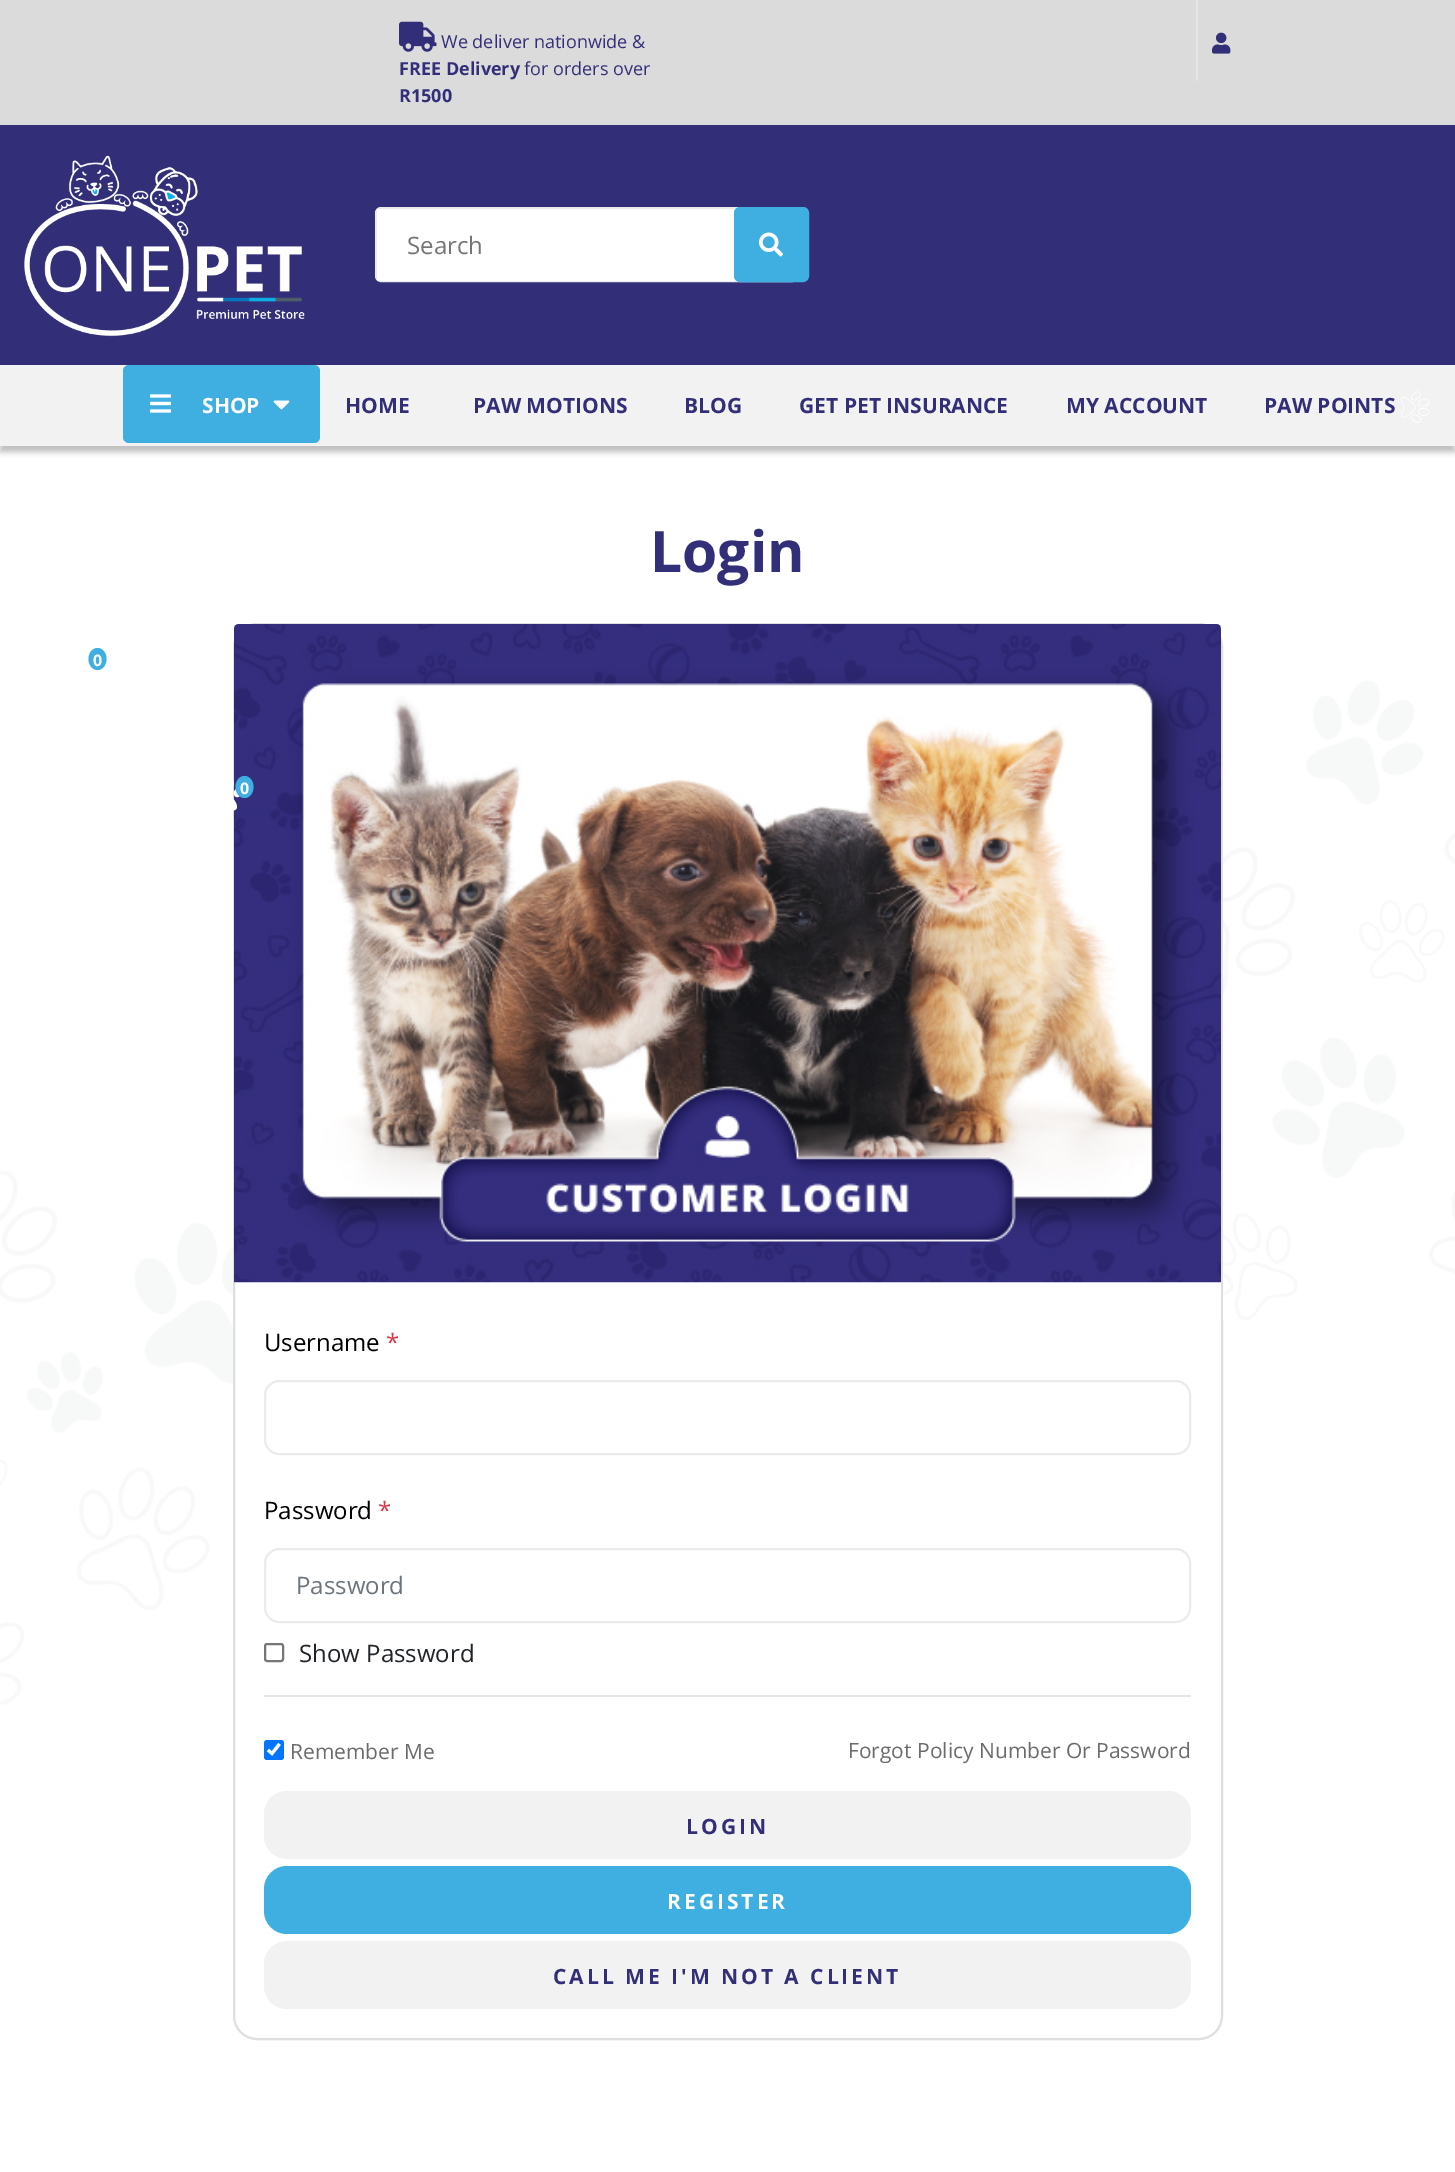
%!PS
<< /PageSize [1455 2172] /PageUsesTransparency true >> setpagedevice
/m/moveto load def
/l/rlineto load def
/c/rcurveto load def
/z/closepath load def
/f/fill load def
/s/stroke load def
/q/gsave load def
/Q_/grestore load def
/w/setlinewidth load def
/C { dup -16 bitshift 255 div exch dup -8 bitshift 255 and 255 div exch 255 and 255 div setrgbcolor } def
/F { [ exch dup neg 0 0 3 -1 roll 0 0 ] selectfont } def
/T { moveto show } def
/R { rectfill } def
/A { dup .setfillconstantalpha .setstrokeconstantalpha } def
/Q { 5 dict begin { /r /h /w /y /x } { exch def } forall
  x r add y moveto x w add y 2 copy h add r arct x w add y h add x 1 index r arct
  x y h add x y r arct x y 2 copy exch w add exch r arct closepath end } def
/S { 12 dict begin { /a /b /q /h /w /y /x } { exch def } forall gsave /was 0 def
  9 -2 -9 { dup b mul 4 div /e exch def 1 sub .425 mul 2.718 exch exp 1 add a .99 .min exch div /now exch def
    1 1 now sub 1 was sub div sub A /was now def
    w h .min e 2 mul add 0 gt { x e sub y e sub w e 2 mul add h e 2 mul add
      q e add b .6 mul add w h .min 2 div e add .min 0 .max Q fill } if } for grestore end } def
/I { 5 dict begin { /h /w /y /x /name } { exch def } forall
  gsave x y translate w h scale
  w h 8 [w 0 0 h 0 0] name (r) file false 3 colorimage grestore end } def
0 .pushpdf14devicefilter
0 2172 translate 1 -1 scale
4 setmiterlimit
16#FFFFFF C
0 0 1455 2172 R
16#DBDBDB C
0 0 1455 125 R
(1.rgb) 399 21 38 31 I
/OpenSans-Regular 18 F
16#322F78 C
(We deliver nationwide &) 441 48 T
/OpenSans-Bold 18 F
(FREE Delivery) 399 75 T
/OpenSans-Regular 18 F
(for orders over) 524 75 T
/OpenSans-Bold 18 F
(R1500) 399 102 T
16#E5E5E5 C
1196 0 2 81 R
(2.rgb) 1212 32 19 22 I
16#322F78 C
0 125 1455 240 R
(3.rgb) 24 155 281 182 I
16#EBEBEB C
2 w
376 208 421 73 5 Q s
16#FFFFFF C
377 209 360 72 R
/OpenSans-Regular 24 F
16#757575 C
(Search) 407 254 T
16#3FAFE2 C
735 208 73 73 5 Q q f Q_
s
(4.rgb) 759 232 24 25 I
97.5 648 m 5 0 9 5 9 11 c 0 6 -4 11 -9 11 c -5 0 -9 -5 -9 -11 c 0 -6 4 -11 9 -11 c z f
/OpenSans-Bold 16 F
16#FFFFFF C
(0) 93 666 T
16#DFDFDF C
234 624 988 1415 23 Q s
(9.rgb) 234 624 987 659 I
(5.rgb) 233 781 7 30 I
16#3FAFE2 C
244.5 776 m 5 0 9 5 9 11 c 0 6 -4 11 -9 11 c -5 0 -9 -5 -9 -11 c 0 -6 4 -11 9 -11 c z f
16#FFFFFF C
(0) 240 794 T
16#000000 C
0 371 1455 81 0 3 .25 S
16#F2F2F2 C
0 365 1455 81 R
16#3FAFE2 C
123 365 197 78 6 Q f
(6.rgb) 150 394 21 19 I
/OpenSans-Bold 21 F
16#FFFFFF C
(SHOP) 202 413 T
(7.rgb) 273 400 17 10 I
16#322F78 C
(HOME) 345 413 T
(PAW MOTIONS) 473 413 T
(BLOG) 684 413 T
(GET PET INSURANCE) 799 413 T
(MY ACCOUNT) 1066 413 T
(PAW POINTS) 1264 413 T
(8.rgb) 1401 391 29 32 I
/OpenSans-Bold 57 F
(Login) 650 572 T
/OpenSans-Regular 24 F
16#000000 C
(Username) 264 1351 T
16#DC3545 C
(*) 386 1351 T
16#EBEBEB C
265 1381 925 73 14 Q s
16#000000 C
(Password) 264 1519 T
16#DC3545 C
(*) 378 1519 T
16#EBEBEB C
265 1549 925 73 14 Q s
16#6C757D C
(Password) 296 1594 T
16#767676 C
265 1644 18 17 2 Q s
16#212529 C
(Show Password) 299 1662 T
16#E6E6E6 C
264 1695 927 2 R
16#0075FF C
264 1740 20 20 3 Q f
16#FFFFFF C
3.1 w
268 1750 m 4 3.5 l 7.5 -9.5 l s
/OpenSans-Regular 21 F
16#6B6B6B C
(Remember Me) 290 1759 T
(Forgot Policy Number Or Password) 848 1758 T
16#F2F2F2 C
264 1791 927 68 23 Q f
/OpenSans-Bold 21 F
16#322F78 C
686 1834 m 3 0 (LOGIN) ashow
16#3FAFE2 C
264 1866 927 68 23 Q f
16#FFFFFF C
667 1909 m 3 0 (REGISTER) ashow
16#F2F2F2 C
264 1941 927 68 23 Q f
16#322F78 C
553 1984 m 3 0 (CALL ME I'M NOT A CLIENT) ashow
(10.rgb) 1223 681 232 639 I
(11.rgb) 0 1171 233 534 I
.poppdf14devicefilter showpage
